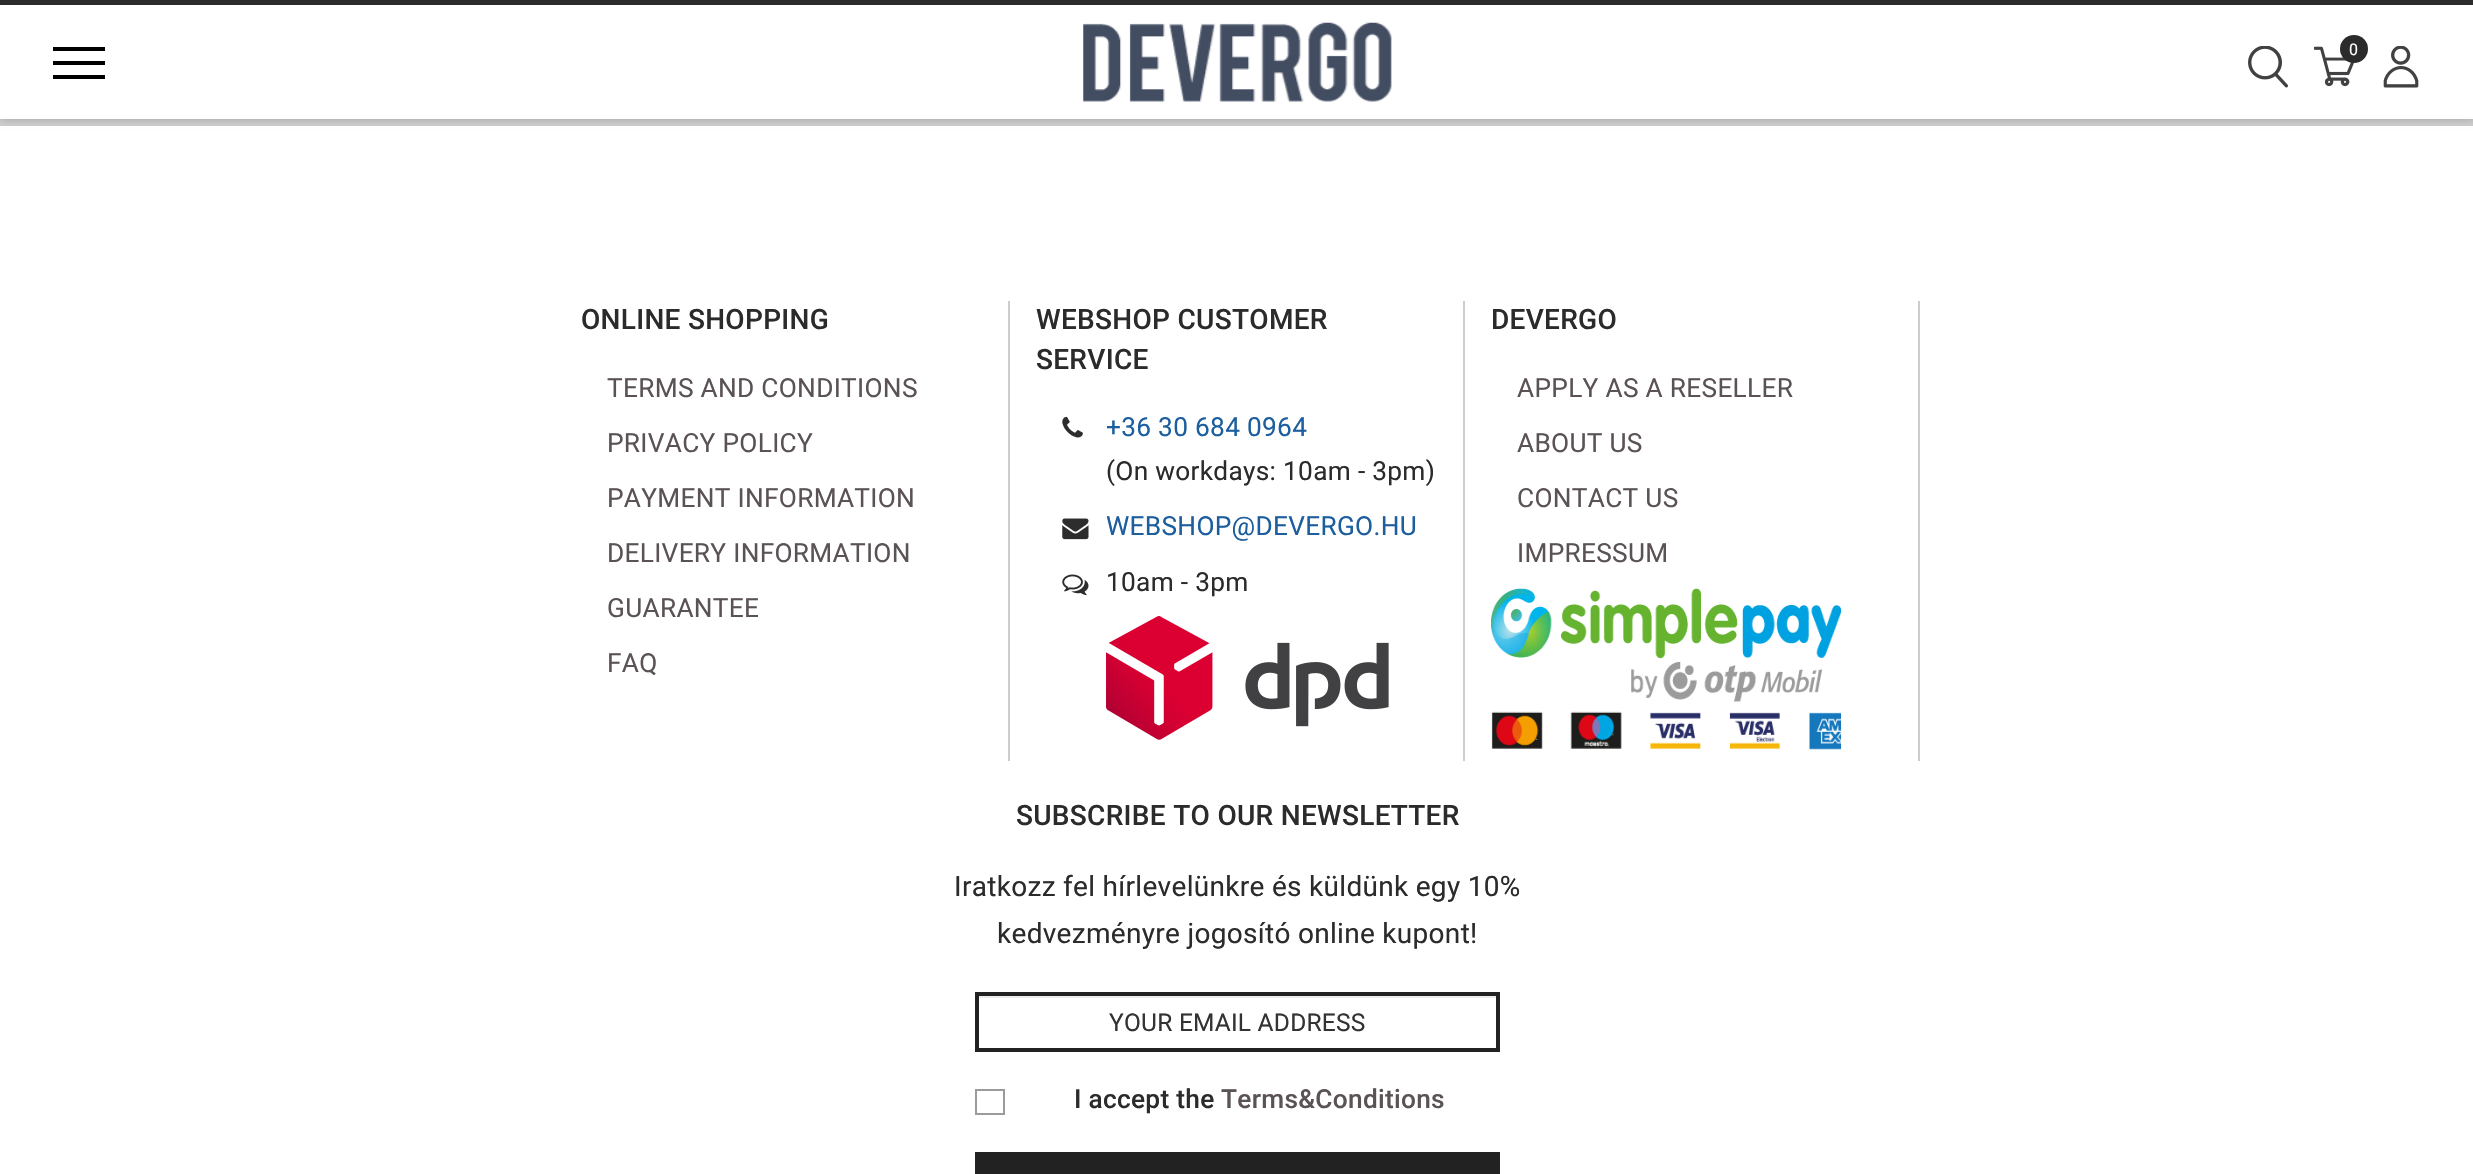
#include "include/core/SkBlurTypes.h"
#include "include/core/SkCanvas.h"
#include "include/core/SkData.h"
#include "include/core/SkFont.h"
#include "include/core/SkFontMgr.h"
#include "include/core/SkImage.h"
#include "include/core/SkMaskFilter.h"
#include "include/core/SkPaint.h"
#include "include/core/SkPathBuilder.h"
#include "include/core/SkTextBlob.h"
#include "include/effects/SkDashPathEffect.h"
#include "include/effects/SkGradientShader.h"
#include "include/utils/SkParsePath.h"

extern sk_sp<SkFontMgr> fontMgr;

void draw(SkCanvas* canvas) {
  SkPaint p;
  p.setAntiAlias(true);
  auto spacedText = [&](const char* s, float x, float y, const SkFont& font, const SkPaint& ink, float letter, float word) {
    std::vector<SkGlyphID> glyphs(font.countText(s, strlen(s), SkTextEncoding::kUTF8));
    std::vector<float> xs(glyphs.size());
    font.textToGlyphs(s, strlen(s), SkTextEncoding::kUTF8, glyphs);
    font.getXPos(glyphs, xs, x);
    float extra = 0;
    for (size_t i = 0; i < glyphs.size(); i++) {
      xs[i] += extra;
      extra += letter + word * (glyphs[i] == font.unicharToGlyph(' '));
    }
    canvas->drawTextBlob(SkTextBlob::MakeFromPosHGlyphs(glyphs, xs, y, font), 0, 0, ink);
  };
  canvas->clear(SK_ColorWHITE);
  p.setColor(SkColorSetRGB(205, 205, 205));
  canvas->drawRect(SkRect::MakeLTRB(0, 119, 2473, 126), p);
  p.setColor(SkColorSetARGB(51, 0, 0, 0));
  p.setMaskFilter(SkMaskFilter::MakeBlur(kNormal_SkBlurStyle, 4.5f));
  canvas->drawRect(SkRect::MakeLTRB(0, -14, 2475, 119), p);
  p.setMaskFilter(nullptr);
  p.setColor(SK_ColorWHITE);
  canvas->drawRect(SkRect::MakeLTRB(0, 5, 2473, 119), p);
  p.setColor(SkColorSetRGB(43, 43, 43));
  canvas->drawRect(SkRect::MakeLTRB(0, 0, 2473, 5), p);
  canvas->drawImageRect(SkImages::DeferredFromEncodedData(SkData::MakeFromFileName("images/1.png")), SkRect::MakeLTRB(1083, 22, 1392, 102), SkSamplingOptions());
  p.setColor(SK_ColorBLACK);
  canvas->drawRect(SkRect::MakeLTRB(53, 47, 105, 51), p);
  canvas->drawRect(SkRect::MakeLTRB(53, 61, 105, 65), p);
  canvas->drawRect(SkRect::MakeLTRB(53, 75, 105, 79), p);
  canvas->drawImageRect(SkImages::DeferredFromEncodedData(SkData::MakeFromFileName("images/2.png")), SkRect::MakeLTRB(2248, 46, 2288, 88), SkSamplingOptions());
  canvas->drawImageRect(SkImages::DeferredFromEncodedData(SkData::MakeFromFileName("images/3.png")), SkRect::MakeLTRB(2314, 46, 2355, 87), SkSamplingOptions());
  p.setColor(SkColorSetRGB(43, 43, 43));
  canvas->drawCircle(2354, 49, 14, p);
  canvas->drawImageRect(SkImages::DeferredFromEncodedData(SkData::MakeFromFileName("images/4.png")), SkRect::MakeLTRB(2383, 46, 2419, 88), SkSamplingOptions());
  p.setColor(SkColorSetRGB(205, 205, 205));
  canvas->drawRect(SkRect::MakeLTRB(1008, 301, 1010, 761), p);
  canvas->drawRect(SkRect::MakeLTRB(1463, 301, 1465, 761), p);
  canvas->drawImageRect(SkImages::DeferredFromEncodedData(SkData::MakeFromFileName("images/5.png")), SkRect::MakeLTRB(1062, 416, 1083, 438), SkSamplingOptions());
  canvas->drawImageRect(SkImages::DeferredFromEncodedData(SkData::MakeFromFileName("images/6.png")), SkRect::MakeLTRB(1062, 518, 1089, 540), SkSamplingOptions());
  canvas->drawImageRect(SkImages::DeferredFromEncodedData(SkData::MakeFromFileName("images/7.png")), SkRect::MakeLTRB(1062, 574, 1089, 596), SkSamplingOptions());
  canvas->drawImageRect(SkImages::DeferredFromEncodedData(SkData::MakeFromFileName("images/8.png")), SkRect::MakeLTRB(1106, 616, 1389, 740), SkSamplingOptions());
  canvas->drawRect(SkRect::MakeLTRB(1918, 301, 1920, 761), p);
  canvas->drawImageRect(SkImages::DeferredFromEncodedData(SkData::MakeFromFileName("images/9.png")), SkRect::MakeLTRB(1491, 588, 1841, 750), SkSamplingOptions());
  p.setColor(SkColorSetRGB(236, 236, 236));
  canvas->drawRect(SkRect::MakeLTRB(978, 996, 1496, 998), p);
  p.setStyle(SkPaint::kStroke_Style);
  p.setStrokeWidth(4);
  p.setColor(SkColorSetRGB(34, 34, 34));
  canvas->drawRect(SkRect::MakeLTRB(977, 994, 1498, 1050), p);
  p.setStrokeWidth(2);
  p.setColor(SkColorSetRGB(157, 154, 155));
  canvas->drawRect(SkRect::MakeLTRB(976, 1090, 1004, 1114), p);
  p.setStyle(SkPaint::kFill_Style);
  p.setColor(SkColorSetRGB(34, 34, 34));
  canvas->drawRect(SkRect::MakeLTRB(975, 1152, 1500, 1174), p);
  SkFont font1(fontMgr->matchFamilyStyle("Roboto", SkFontStyle::Normal()), 16);
  font1.setSubpixel(true);
  p.setColor(SK_ColorWHITE);
  spacedText("0", 2349, 55, font1, p, 0.3f, 0);
  SkFont font2(fontMgr->matchFamilyStyle("Roboto", SkFontStyle(500, SkFontStyle::kNormal_Width, SkFontStyle::kUpright_Slant)), 28);
  font2.setSubpixel(true);
  p.setColor(SkColorSetRGB(43, 43, 43));
  spacedText("ONLINE SHOPPING", 581, 329, font2, p, 0.3f, 0);
  SkFont font3(fontMgr->matchFamilyStyle("Roboto", SkFontStyle::Normal()), 26.25f);
  font3.setSubpixel(true);
  p.setColor(SkColorSetRGB(90, 82, 84));
  spacedText("TERMS AND CONDITIONS", 607, 397, font3, p, 0.3f, 0);
  spacedText("PRIVACY POLICY", 607, 452, font3, p, 0.3f, 0);
  spacedText("PAYMENT INFORMATION", 607, 507, font3, p, 0.3f, 0);
  spacedText("DELIVERY INFORMATION", 607, 562, font3, p, 0.3f, 0);
  spacedText("GUARANTEE", 607, 617, font3, p, 0.3f, 0);
  spacedText("FAQ", 607, 672, font3, p, 0.3f, 0);
  p.setColor(SkColorSetRGB(43, 43, 43));
  spacedText("WEBSHOP CUSTOMER", 1036, 329, font2, p, 0.3f, 0);
  spacedText("SERVICE", 1036, 369, font2, p, 0.3f, 0);
  p.setColor(SkColorSetRGB(28, 94, 158));
  spacedText("+36 30 684 0964", 1106, 436, font3, p, 0.3f, 0);
  p.setColor(SkColorSetRGB(43, 43, 43));
  spacedText("(On workdays: 10am - 3pm)", 1106, 480, font3, p, 0.3f, 0);
  p.setColor(SkColorSetRGB(28, 94, 158));
  spacedText("WEBSHOP@DEVERGO.HU", 1106, 535, font3, p, 0.3f, 0);
  p.setColor(SkColorSetRGB(43, 43, 43));
  spacedText("10am - 3pm", 1106, 591, font3, p, 0.3f, 0);
  spacedText("DEVERGO", 1491, 329, font2, p, 0.3f, 0);
  p.setColor(SkColorSetRGB(90, 82, 84));
  spacedText("APPLY AS A RESELLER", 1517, 397, font3, p, 0.3f, 0);
  spacedText("ABOUT US", 1517, 452, font3, p, 0.3f, 0);
  spacedText("CONTACT US", 1517, 507, font3, p, 0.3f, 0);
  spacedText("IMPRESSUM", 1517, 562, font3, p, 0.3f, 0);
  p.setColor(SkColorSetRGB(43, 43, 43));
  spacedText("SUBSCRIBE TO OUR NEWSLETTER", 1016, 825, font2, p, 0.3f, 0);
  SkFont font4(fontMgr->matchFamilyStyle("Roboto", SkFontStyle::Normal()), 28);
  font4.setSubpixel(true);
  spacedText("Iratkozz fel hírlevelünkre és küldünk egy 10%", 954, 896, font4, p, 0.3f, 0);
  spacedText("kedvezményre jogosító online kupont!", 997, 943, font4, p, 0.3f, 0);
  SkFont font5(fontMgr->matchFamilyStyle("Roboto", SkFontStyle::Normal()), 24.5f);
  font5.setSubpixel(true);
  p.setColor(SkColorSetRGB(51, 51, 51));
  spacedText("YOUR EMAIL ADDRESS", 1109, 1031, font5, p, 0.25f, 0);
  SkFont font6(fontMgr->matchFamilyStyle("Roboto", SkFontStyle(500, SkFontStyle::kNormal_Width, SkFontStyle::kUpright_Slant)), 26.25f);
  font6.setSubpixel(true);
  p.setColor(SkColorSetRGB(43, 43, 43));
  spacedText("I accept the", 1074, 1108, font6, p, 0.3f, 0);
  p.setColor(SkColorSetRGB(90, 82, 84));
  spacedText("Terms&Conditions", 1221, 1108, font6, p, 0.3f, 0);
}
